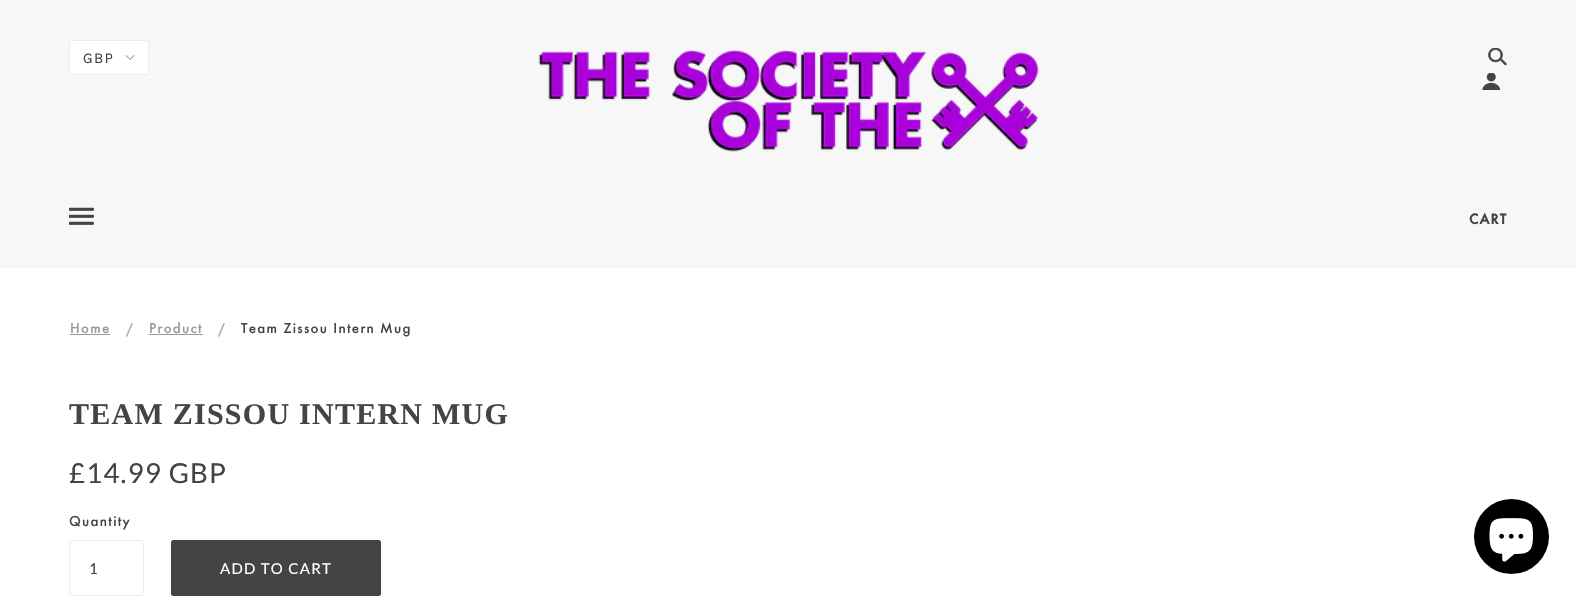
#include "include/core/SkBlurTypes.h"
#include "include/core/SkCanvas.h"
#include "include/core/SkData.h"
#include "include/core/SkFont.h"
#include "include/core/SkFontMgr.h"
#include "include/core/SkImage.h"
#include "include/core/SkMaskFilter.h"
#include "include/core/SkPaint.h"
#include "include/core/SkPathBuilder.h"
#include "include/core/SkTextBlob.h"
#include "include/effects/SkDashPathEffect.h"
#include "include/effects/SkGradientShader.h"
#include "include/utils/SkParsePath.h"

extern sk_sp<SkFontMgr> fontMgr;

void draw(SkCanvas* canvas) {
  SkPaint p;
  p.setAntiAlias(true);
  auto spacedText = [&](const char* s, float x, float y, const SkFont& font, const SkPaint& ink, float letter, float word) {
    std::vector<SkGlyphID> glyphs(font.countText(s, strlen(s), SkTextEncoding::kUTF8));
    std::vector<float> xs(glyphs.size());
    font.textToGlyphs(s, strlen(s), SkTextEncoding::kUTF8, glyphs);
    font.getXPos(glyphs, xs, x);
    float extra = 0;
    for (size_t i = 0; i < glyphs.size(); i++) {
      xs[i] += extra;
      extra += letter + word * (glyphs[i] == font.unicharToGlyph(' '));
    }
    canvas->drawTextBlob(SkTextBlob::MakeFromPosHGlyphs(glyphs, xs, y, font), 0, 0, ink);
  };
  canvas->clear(SK_ColorWHITE);
  p.setColor(SkColorSetRGB(247, 247, 247));
  canvas->drawRect(SkRect::MakeLTRB(0, 0, 1576, 268), p);
  p.setColor(SK_ColorWHITE);
  canvas->drawRoundRect(SkRect::MakeLTRB(69, 40, 149, 75), 2.5f, 2.5f, p);
  canvas->drawImageRect(SkImages::DeferredFromEncodedData(SkData::MakeFromFileName("images/1.png")), SkRect::MakeLTRB(125, 55, 135, 60), SkSamplingOptions());
  p.setStyle(SkPaint::kStroke_Style);
  p.setStrokeWidth(1);
  p.setColor(SkColorSetRGB(235, 235, 235));
  canvas->drawRoundRect(SkRect::MakeLTRB(69.5f, 40.5f, 148.5f, 74.5f), 2, 2, p);
  canvas->drawImageRect(SkImages::DeferredFromEncodedData(SkData::MakeFromFileName("images/2.png")), SkRect::MakeLTRB(538, 50, 1039, 152), SkSamplingOptions());
  canvas->drawImageRect(SkImages::DeferredFromEncodedData(SkData::MakeFromFileName("images/3.png")), SkRect::MakeLTRB(1488, 48, 1507, 65), SkSamplingOptions());
  canvas->drawImageRect(SkImages::DeferredFromEncodedData(SkData::MakeFromFileName("images/4.png")), SkRect::MakeLTRB(1482, 73, 1501, 90), SkSamplingOptions());
  canvas->drawImageRect(SkImages::DeferredFromEncodedData(SkData::MakeFromFileName("images/5.png")), SkRect::MakeLTRB(69, 207, 94, 225), SkSamplingOptions());
  p.setStyle(SkPaint::kFill_Style);
  p.setColor(SkColorSetRGB(153, 153, 153));
  canvas->drawRect(SkRect::MakeLTRB(70, 334, 110, 335), p);
  canvas->drawRect(SkRect::MakeLTRB(149, 334, 203, 335), p);
  p.setStyle(SkPaint::kStroke_Style);
  p.setColor(SkColorSetRGB(235, 235, 235));
  canvas->drawRoundRect(SkRect::MakeLTRB(69.5f, 540.5f, 143.5f, 595.5f), 2, 2, p);
  p.setStyle(SkPaint::kFill_Style);
  p.setColor(SkColorSetRGB(68, 68, 68));
  canvas->drawRoundRect(SkRect::MakeLTRB(171, 540, 381, 596), 2.5f, 2.5f, p);
  p.setColor(SK_ColorBLACK);
  canvas->drawCircle(1511.5f, 536.5f, 37.5f, p);
  canvas->drawImageRect(SkImages::DeferredFromEncodedData(SkData::MakeFromFileName("images/6.png")), SkRect::MakeLTRB(1489, 518, 1533, 562), SkSamplingOptions());
  SkFont font1(fontMgr->matchFamilyStyle("Karla", SkFontStyle::Normal()), 15);
  font1.setSubpixel(true);
  p.setColor(SkColorSetRGB(68, 68, 68));
  spacedText("GBP", 83, 63, font1, p, 1.25f, 0);
  SkFont font2(fontMgr->matchFamilyStyle("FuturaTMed", SkFontStyle::Bold()), 15);
  font2.setSubpixel(true);
  spacedText("CART", 1469, 224, font2, p, 1.25f, 0);
  SkFont font3(fontMgr->matchFamilyStyle("FuturaTMed", SkFontStyle::Normal()), 15);
  font3.setSubpixel(true);
  p.setColor(SkColorSetRGB(153, 153, 153));
  spacedText("Home", 70, 333, font3, p, 1.25f, 0);
  p.setColor(SkColorSetRGB(170, 170, 170));
  spacedText("/", 126, 334, font3, p, 1.25f, 0);
  p.setColor(SkColorSetRGB(153, 153, 153));
  spacedText("Product", 149, 333, font3, p, 1.25f, 0);
  p.setColor(SkColorSetRGB(170, 170, 170));
  spacedText("/", 218, 334, font3, p, 1.25f, 0);
  p.setColor(SkColorSetRGB(68, 68, 68));
  spacedText("Team Zissou Intern Mug", 241, 333, font3, p, 1.25f, 0);
  SkFont font4(fontMgr->matchFamilyStyle("Liberation Serif", SkFontStyle::Bold()), 30);
  font4.setSubpixel(true);
  spacedText("TEAM ZISSOU INTERN MUG", 69, 424, font4, p, 1.25f, 0);
  SkFont font5(fontMgr->matchFamilyStyle("Lato", SkFontStyle::Normal()), 27.5f);
  font5.setSubpixel(true);
  spacedText("£14.99 GBP", 69, 483, font5, p, 1.25f, 0);
  spacedText("Quantity", 69, 526, font3, p, 1.25f, 0);
  SkFont font6(fontMgr->matchFamilyStyle("Lato", SkFontStyle::Normal()), 15);
  font6.setSubpixel(true);
  spacedText("1", 89, 574, font6, p, 1, 0);
  p.setColor(SK_ColorWHITE);
  spacedText("ADD TO CART", 220, 574, font6, p, 1.25f, 0);
}
